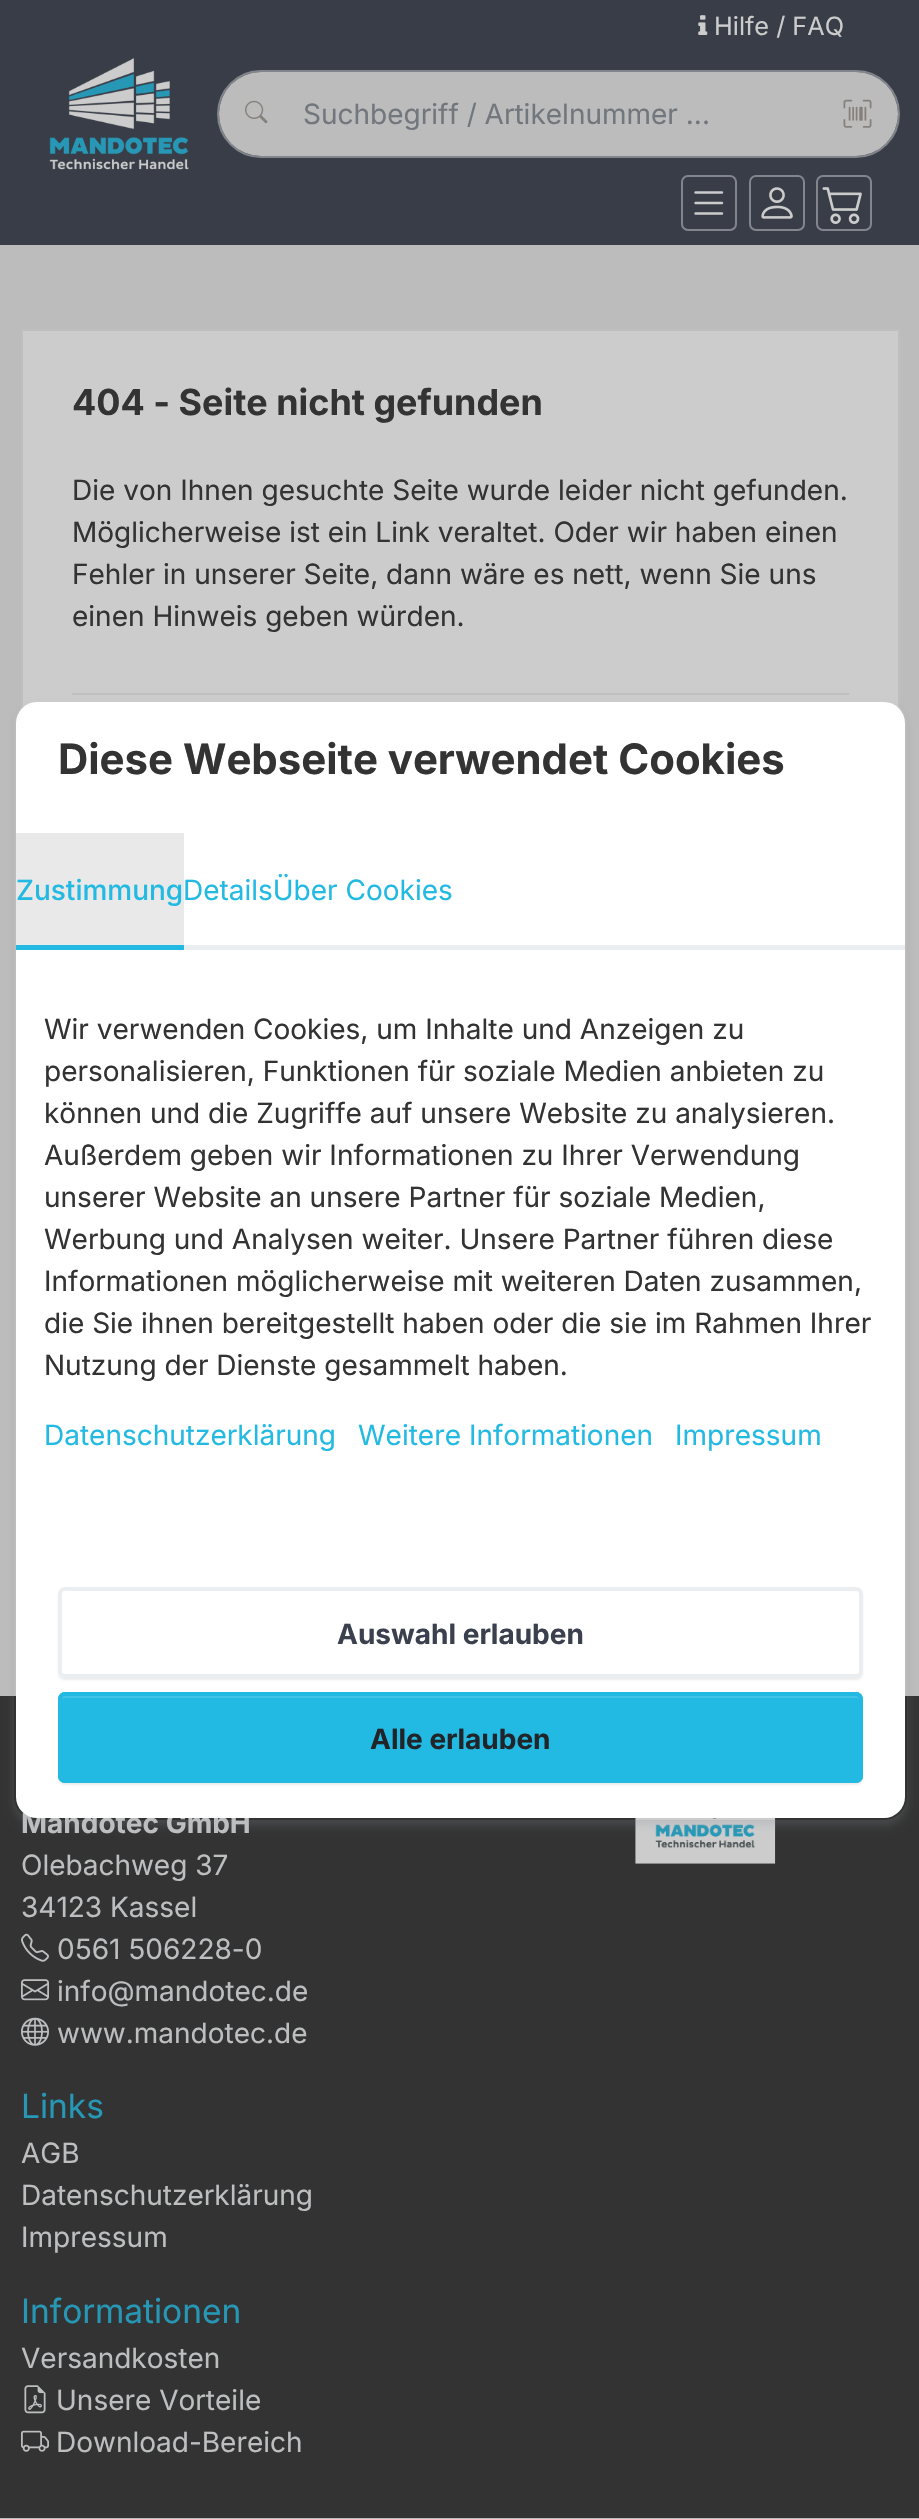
#include "include/core/SkBlurTypes.h"
#include "include/core/SkCanvas.h"
#include "include/core/SkData.h"
#include "include/core/SkFont.h"
#include "include/core/SkFontMgr.h"
#include "include/core/SkImage.h"
#include "include/core/SkMaskFilter.h"
#include "include/core/SkPaint.h"
#include "include/core/SkPathBuilder.h"
#include "include/core/SkTextBlob.h"
#include "include/effects/SkDashPathEffect.h"
#include "include/effects/SkGradientShader.h"
#include "include/utils/SkParsePath.h"

extern sk_sp<SkFontMgr> fontMgr;

void draw(SkCanvas* canvas) {
  SkPaint p;
  p.setAntiAlias(true);
  canvas->clear(SkColorSetRGB(188, 188, 188));
  p.setColor(SkColorSetRGB(56, 61, 71));
  canvas->drawRect(SkRect::MakeLTRB(0, 0, 919, 245), p);
  canvas->drawImageRect(SkImages::DeferredFromEncodedData(SkData::MakeFromFileName("images/1.png")), SkRect::MakeLTRB(698, 15, 708, 35), SkSamplingOptions());
  canvas->drawImageRect(SkImages::DeferredFromEncodedData(SkData::MakeFromFileName("images/2.png")), SkRect::MakeLTRB(49, 58, 189, 170), SkSamplingOptions());
  p.setColor(SkColorSetRGB(188, 188, 188));
  canvas->drawRoundRect(SkRect::MakeLTRB(219, 72, 898, 156), 42, 42, p);
  p.setStyle(SkPaint::kStroke_Style);
  p.setStrokeWidth(2);
  p.setColor(SkColorSetARGB(153, 179, 182, 185));
  canvas->drawRoundRect(SkRect::MakeLTRB(218, 71, 899, 157), 43, 43, p);
  canvas->drawImageRect(SkImages::DeferredFromEncodedData(SkData::MakeFromFileName("images/3.png")), SkRect::MakeLTRB(245, 100, 268, 124), SkSamplingOptions());
  canvas->drawImageRect(SkImages::DeferredFromEncodedData(SkData::MakeFromFileName("images/4.png")), SkRect::MakeLTRB(843, 99, 872, 128), SkSamplingOptions());
  p.setColor(SkColorSetRGB(130, 134, 140));
  canvas->drawRoundRect(SkRect::MakeLTRB(682, 176, 736, 230), 6, 6, p);
  canvas->drawImageRect(SkImages::DeferredFromEncodedData(SkData::MakeFromFileName("images/5.png")), SkRect::MakeLTRB(694, 191, 724, 215), SkSamplingOptions());
  canvas->drawRoundRect(SkRect::MakeLTRB(750, 176, 804, 230), 6, 6, p);
  canvas->drawImageRect(SkImages::DeferredFromEncodedData(SkData::MakeFromFileName("images/6.png")), SkRect::MakeLTRB(761, 187, 793, 219), SkSamplingOptions());
  canvas->drawRoundRect(SkRect::MakeLTRB(817, 176, 871, 230), 6, 6, p);
  canvas->drawImageRect(SkImages::DeferredFromEncodedData(SkData::MakeFromFileName("images/7.png")), SkRect::MakeLTRB(822, 187, 862, 224), SkSamplingOptions());
  p.setStyle(SkPaint::kFill_Style);
  p.setColor(SkColorSetRGB(204, 204, 204));
  canvas->drawRect(SkRect::MakeLTRB(23, 331, 898, 708), p);
  p.setStyle(SkPaint::kStroke_Style);
  p.setColor(SkColorSetRGB(189, 191, 193));
  canvas->drawRect(SkRect::MakeLTRB(22, 330, 899, 892), p);
  p.setStyle(SkPaint::kFill_Style);
  canvas->drawRect(SkRect::MakeLTRB(72, 693, 849, 695), p);
  p.setColor(SkColorSetRGB(51, 51, 51));
  canvas->drawRect(SkRect::MakeLTRB(0, 1696, 919, 2518), p);
  canvas->drawImageRect(SkImages::DeferredFromEncodedData(SkData::MakeFromFileName("images/11.png")), SkRect::MakeLTRB(635, 1818, 776, 1864), SkSamplingOptions());
  canvas->save();
  canvas->clipPath(SkPathBuilder(SkPathFillType::kEvenOdd).moveTo(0, 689).lineTo(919, 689).lineTo(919, 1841).lineTo(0, 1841).close().moveTo(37, 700).lineTo(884, 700).cubicTo(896.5f, 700, 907, 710.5f, 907, 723).lineTo(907, 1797).cubicTo(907, 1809.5f, 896.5f, 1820, 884, 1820).lineTo(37, 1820).cubicTo(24.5f, 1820, 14, 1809.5f, 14, 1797).lineTo(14, 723).cubicTo(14, 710.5f, 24.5f, 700, 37, 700).close().detach(), true);
  p.setColor(SkColorSetARGB(64, 134, 142, 150));
  p.setMaskFilter(SkMaskFilter::MakeBlur(kNormal_SkBlurStyle, 5));
  canvas->drawRoundRect(SkRect::MakeLTRB(14, 705, 907, 1825), 23, 23, p);
  p.setMaskFilter(nullptr);
  canvas->restore();
  canvas->drawImageRect(SkImages::DeferredFromEncodedData(SkData::MakeFromFileName("images/8.png")), SkRect::MakeLTRB(21, 1933, 49, 1962), SkSamplingOptions());
  canvas->drawImageRect(SkImages::DeferredFromEncodedData(SkData::MakeFromFileName("images/9.png")), SkRect::MakeLTRB(21, 1979, 49, 2001), SkSamplingOptions());
  canvas->drawImageRect(SkImages::DeferredFromEncodedData(SkData::MakeFromFileName("images/10.png")), SkRect::MakeLTRB(21, 2017, 49, 2046), SkSamplingOptions());
  canvas->drawImageRect(SkImages::DeferredFromEncodedData(SkData::MakeFromFileName("images/12.png")), SkRect::MakeLTRB(24, 2385, 46, 2414), SkSamplingOptions());
  canvas->drawImageRect(SkImages::DeferredFromEncodedData(SkData::MakeFromFileName("images/13.png")), SkRect::MakeLTRB(21, 2430, 49, 2452), SkSamplingOptions());
  SkFont font1(fontMgr->matchFamilyStyle("Inter", SkFontStyle::Normal()), 25.25f);
  font1.setSubpixel(true);
  p.setColor(SkColorSetRGB(204, 204, 204));
  canvas->drawString("Hilfe / FAQ", 714, 35, font1, p);
  SkFont font2(fontMgr->matchFamilyStyle("Inter", SkFontStyle::Normal()), 28);
  font2.setSubpixel(true);
  p.setColor(SkColorSetRGB(113, 119, 125));
  canvas->drawString("Suchbegriff / Artikelnummer ...", 303, 124, font2, p);
  SkFont font3(fontMgr->matchFamilyStyle("Inter", SkFontStyle::Bold()), 35.9f);
  font3.setSubpixel(true);
  p.setColor(SkColorSetRGB(51, 51, 51));
  canvas->drawString("404 - Seite nicht gefunden", 72, 415, font3, p);
  canvas->drawString("Die von Ihnen gesuchte Seite wurde leider nicht gefunden.", 72, 500, font2, p);
  canvas->drawString("Möglicherweise ist ein Link veraltet. Oder wir haben einen", 72, 542, font2, p);
  canvas->drawString("Fehler in unserer Seite, dann wäre es nett, wenn Sie uns", 72, 584, font2, p);
  canvas->drawString("einen Hinweis geben würden.", 72, 626, font2, p);
  SkFont font4(fontMgr->matchFamilyStyle("Inter", SkFontStyle::Bold()), 28);
  font4.setSubpixel(true);
  p.setColor(SkColorSetRGB(188, 190, 192));
  canvas->drawString("Mandotec GmbH", 21, 1833, font4, p);
  p.setColor(SK_ColorWHITE);
  canvas->drawRoundRect(SkRect::MakeLTRB(16, 702, 905, 1818), 21, 21, p);
  p.setColor(SkColorSetARGB(18, 0, 0, 0));
  p.setMaskFilter(SkMaskFilter::MakeBlur(kNormal_SkBlurStyle, 1));
  canvas->drawRoundRect(SkRect::MakeLTRB(58, 1694, 863, 1785), 7, 7, p);
  p.setMaskFilter(nullptr);
  p.setColor(SkColorSetRGB(34, 186, 226));
  canvas->drawRoundRect(SkRect::MakeLTRB(58, 1692, 863, 1783), 7, 7, p);
  p.setColor(SkColorSetRGB(67, 196, 230));
  canvas->drawPath(SkPathBuilder().moveTo(65, 1698).lineTo(856, 1698).cubicTo(858, 1698, 859, 1699, 859, 1701).cubicTo(859, 1698, 858, 1696, 855, 1696).lineTo(65, 1696).cubicTo(62, 1696, 61, 1698, 61, 1701).cubicTo(61, 1699, 63, 1698, 65, 1698).close().detach(), p);
  p.setStyle(SkPaint::kStroke_Style);
  p.setStrokeWidth(4);
  p.setColor(SkColorSetRGB(34, 186, 226));
  canvas->drawRoundRect(SkRect::MakeLTRB(60, 1694, 861, 1781), 5, 5, p);
  p.setStyle(SkPaint::kFill_Style);
  p.setColor(SkColorSetRGB(33, 37, 41));
  canvas->drawString("Alle erlauben", 370, 1749, font4, p);
  canvas->save();
  canvas->clipPath(SkPathBuilder(SkPathFillType::kEvenOdd).moveTo(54, 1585).lineTo(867, 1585).lineTo(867, 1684).lineTo(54, 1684).close().moveTo(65, 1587).lineTo(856, 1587).cubicTo(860, 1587, 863, 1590, 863, 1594).lineTo(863, 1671).cubicTo(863, 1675, 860, 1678, 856, 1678).lineTo(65, 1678).cubicTo(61, 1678, 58, 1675, 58, 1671).lineTo(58, 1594).cubicTo(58, 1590, 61, 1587, 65, 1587).close().detach(), true);
  p.setColor(SkColorSetARGB(18, 0, 0, 0));
  p.setMaskFilter(SkMaskFilter::MakeBlur(kNormal_SkBlurStyle, 1));
  canvas->drawRoundRect(SkRect::MakeLTRB(58, 1589, 863, 1680), 7, 7, p);
  p.setMaskFilter(nullptr);
  canvas->restore();
  p.setStyle(SkPaint::kStroke_Style);
  p.setColor(SkColorSetARGB(153, 222, 226, 230));
  canvas->drawRoundRect(SkRect::MakeLTRB(60, 1589, 861, 1676), 5, 5, p);
  p.setStyle(SkPaint::kFill_Style);
  p.setColor(SkColorSetRGB(58, 64, 77));
  canvas->drawString("Auswahl erlauben", 337, 1644, font4, p);
  p.setColor(SkColorSetRGB(34, 186, 226));
  canvas->drawString("Impressum", 675, 1445, font2, p);
  canvas->drawString("Weitere Informationen", 358, 1445, font2, p);
  canvas->drawString("Datenschutzerklärung", 44, 1445, font2, p);
  p.setColor(SkColorSetRGB(51, 51, 51));
  canvas->drawString("Nutzung der Dienste gesammelt haben.", 44, 1375, font2, p);
  canvas->drawString("die Sie ihnen bereitgestellt haben oder die sie im Rahmen Ihrer", 44, 1333, font2, p);
  canvas->drawString("Informationen möglicherweise mit weiteren Daten zusammen,", 44, 1291, font2, p);
  canvas->drawString("Werbung und Analysen weiter. Unsere Partner führen diese", 44, 1249, font2, p);
  canvas->drawString("unserer Website an unsere Partner für soziale Medien,", 44, 1207, font2, p);
  canvas->drawString("Außerdem geben wir Informationen zu Ihrer Verwendung", 44, 1165, font2, p);
  canvas->drawString("können und die Zugriffe auf unsere Website zu analysieren.", 44, 1123, font2, p);
  canvas->drawString("personalisieren, Funktionen für soziale Medien anbieten zu", 44, 1081, font2, p);
  canvas->drawString("Wir verwenden Cookies, um Inhalte und Anzeigen zu", 44, 1039, font2, p);
  p.setColor(SkColorSetRGB(34, 186, 226));
  canvas->drawString("DetailsÜber Cookies", 183, 900, font2, p);
  p.setColor(SkColorSetRGB(233, 233, 233));
  canvas->drawRect(SkRect::MakeLTRB(16, 833, 184, 945), p);
  SkFont font5(fontMgr->matchFamilyStyle("Inter", SkFontStyle(500, SkFontStyle::kNormal_Width, SkFontStyle::kUpright_Slant)), 28);
  font5.setSubpixel(true);
  p.setColor(SkColorSetRGB(34, 186, 226));
  canvas->drawString("Zustimmung", 16, 900, font5, p);
  canvas->drawRect(SkRect::MakeLTRB(16, 945, 184, 950), p);
  p.setColor(SkColorSetRGB(235, 238, 240));
  canvas->drawRect(SkRect::MakeLTRB(184, 945, 905, 950), p);
  SkFont font6(fontMgr->matchFamilyStyle("Inter", SkFontStyle::Bold()), 41.9f);
  font6.setSubpixel(true);
  p.setColor(SkColorSetRGB(51, 51, 51));
  canvas->drawString("Diese Webseite verwendet Cookies", 58, 774, font6, p);
  p.setColor(SkColorSetRGB(188, 190, 192));
  canvas->drawString("Olebachweg 37", 21, 1875, font2, p);
  canvas->drawString("34123 Kassel", 21, 1917, font2, p);
  canvas->drawString("0561 506228-0", 57, 1959, font2, p);
  canvas->drawString("info@mandotec.de", 57, 2001, font2, p);
  canvas->drawString("www.mandotec.de", 57, 2043, font2, p);
  SkFont font7(fontMgr->matchFamilyStyle("Inter", SkFontStyle::Normal()), 33.5f);
  font7.setSubpixel(true);
  p.setColor(SkColorSetRGB(38, 152, 182));
  canvas->drawString("Links", 21, 2118, font7, p);
  p.setColor(SkColorSetRGB(188, 190, 192));
  canvas->drawString("AGB", 21, 2163, font2, p);
  canvas->drawString("Datenschutzerklärung", 21, 2205, font2, p);
  canvas->drawString("Impressum", 21, 2247, font2, p);
  p.setColor(SkColorSetRGB(38, 152, 182));
  canvas->drawString("Informationen", 21, 2323, font7, p);
  p.setColor(SkColorSetRGB(188, 190, 192));
  canvas->drawString("Versandkosten", 21, 2368, font2, p);
  canvas->drawString("Unsere Vorteile", 56, 2410, font2, p);
  canvas->drawString("Download-Bereich", 56, 2452, font2, p);
}
